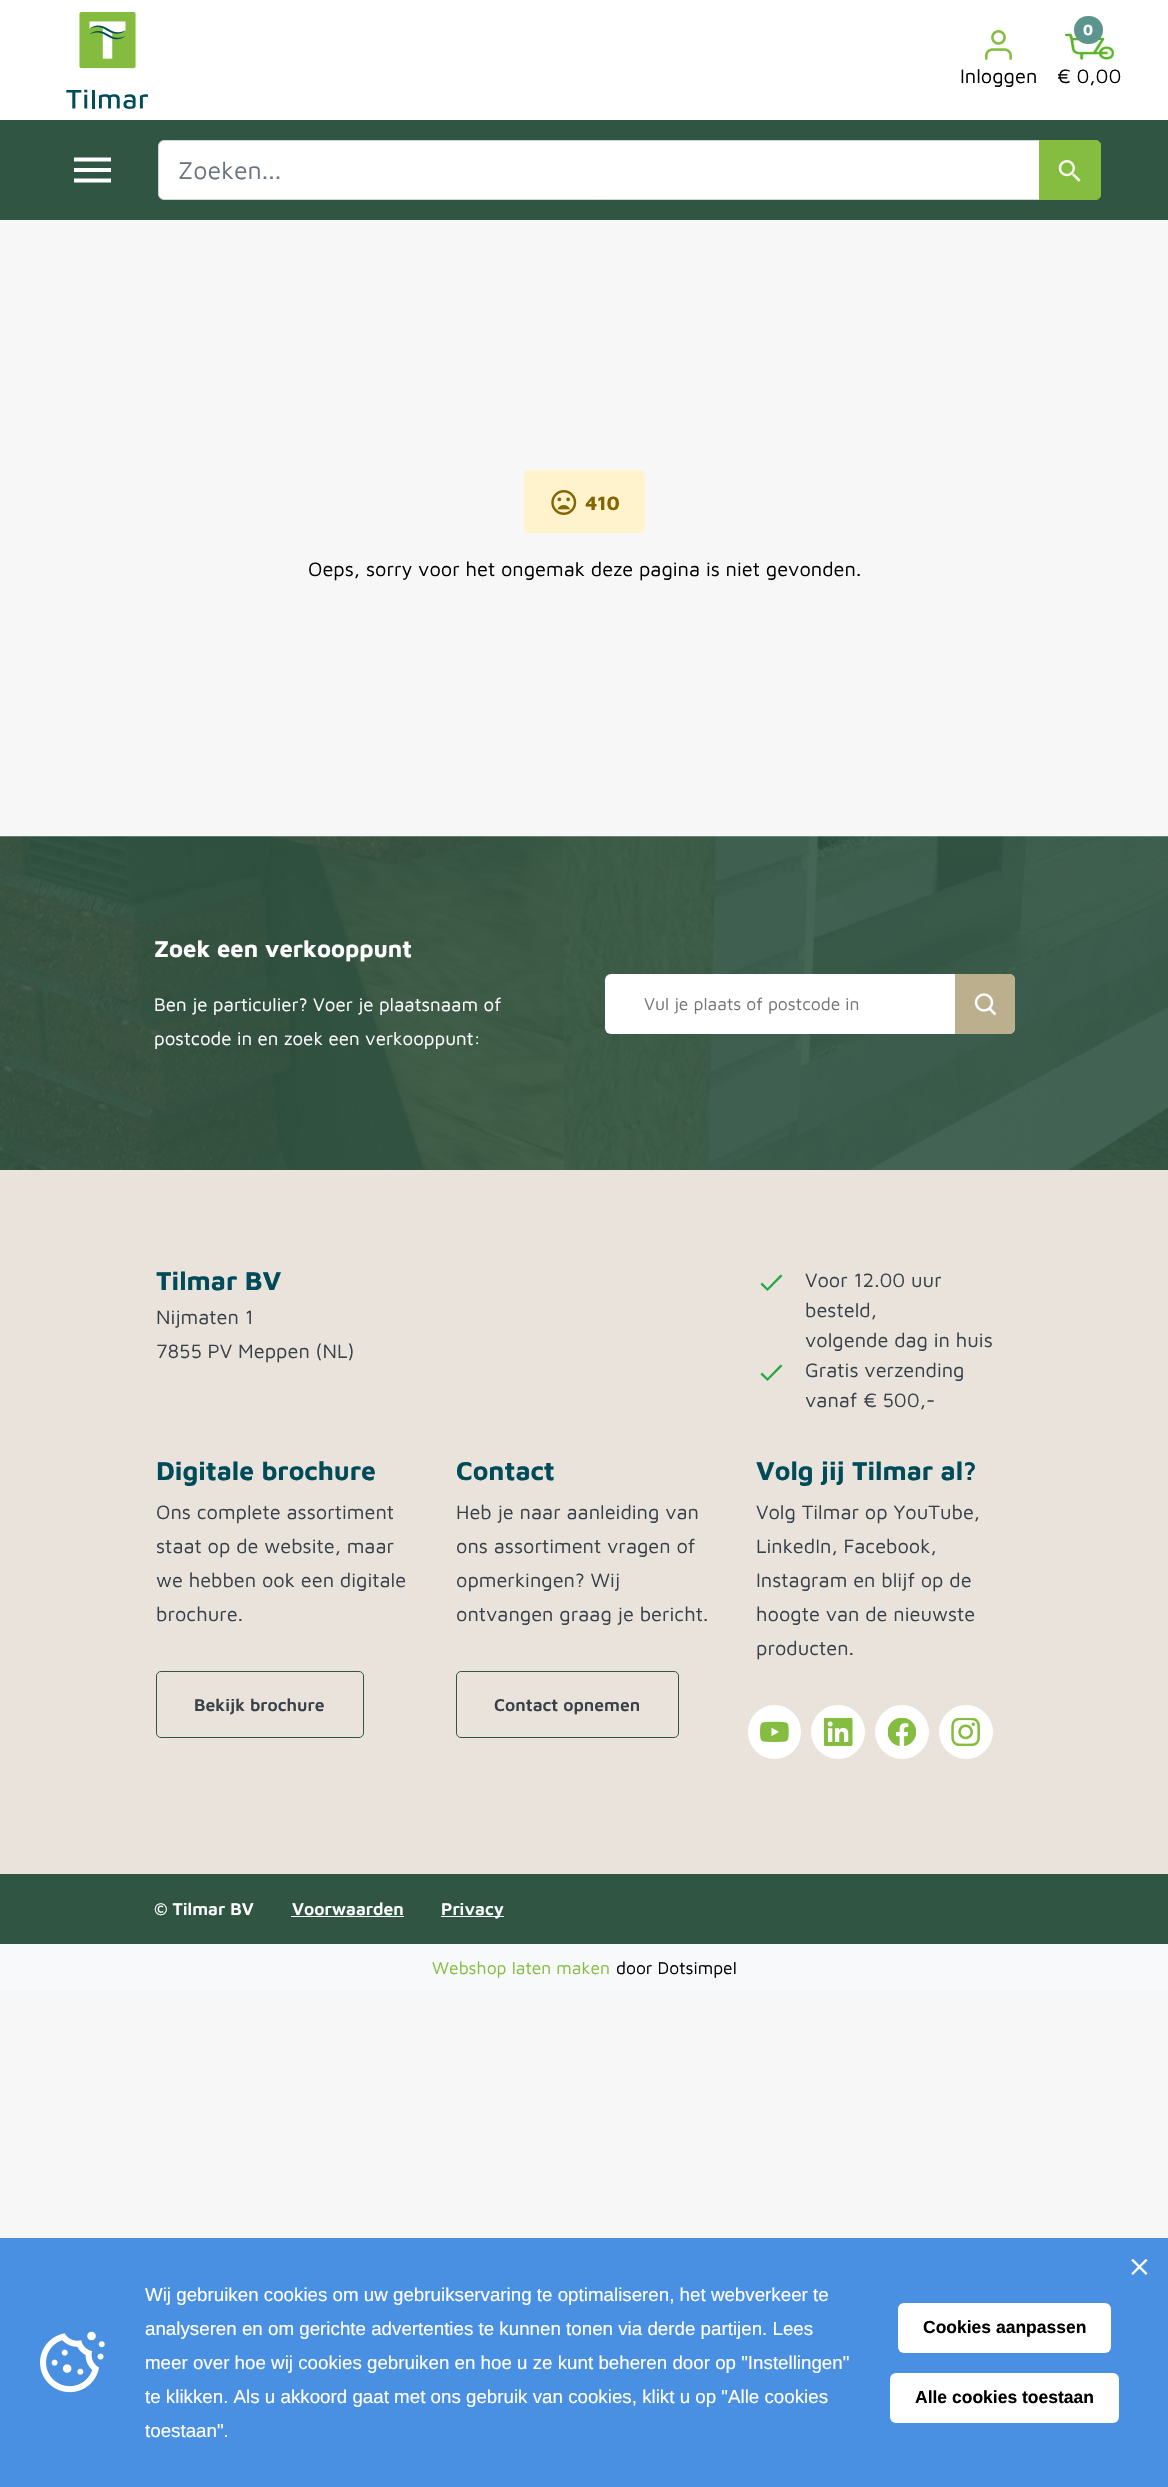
#include "include/core/SkBlurTypes.h"
#include "include/core/SkCanvas.h"
#include "include/core/SkData.h"
#include "include/core/SkFont.h"
#include "include/core/SkFontMgr.h"
#include "include/core/SkImage.h"
#include "include/core/SkMaskFilter.h"
#include "include/core/SkPaint.h"
#include "include/core/SkPathBuilder.h"
#include "include/core/SkTextBlob.h"
#include "include/effects/SkDashPathEffect.h"
#include "include/effects/SkGradientShader.h"
#include "include/utils/SkParsePath.h"

extern sk_sp<SkFontMgr> fontMgr;

void draw(SkCanvas* canvas) {
  SkPaint p;
  p.setAntiAlias(true);
  canvas->clear(SkColorSetRGB(247, 247, 247));
  p.setColor(SK_ColorWHITE);
  canvas->drawRect(SkRect::MakeLTRB(0, 0, 1168, 120), p);
  canvas->drawImageRect(SkImages::DeferredFromEncodedData(SkData::MakeFromFileName("images/1.png")), SkRect::MakeLTRB(66, 12, 148, 109), SkSamplingOptions());
  canvas->drawImageRect(SkImages::DeferredFromEncodedData(SkData::MakeFromFileName("images/2.png")), SkRect::MakeLTRB(985, 30, 1012, 60), SkSamplingOptions());
  canvas->drawImageRect(SkImages::DeferredFromEncodedData(SkData::MakeFromFileName("images/3.png")), SkRect::MakeLTRB(1065, 33, 1114, 60), SkSamplingOptions());
  p.setColor(SkColorSetRGB(92, 149, 142));
  canvas->drawRoundRect(SkRect::MakeLTRB(1074, 16, 1103, 44), 14, 14, p);
  p.setColor(SkColorSetRGB(49, 85, 67));
  canvas->drawRect(SkRect::MakeLTRB(0, 120, 1168, 220), p);
  p.setColor(SK_ColorWHITE);
  canvas->drawPath(SkPathBuilder().moveTo(74, 157.5f).lineTo(111, 157.5f).lineTo(111, 161.5f).lineTo(74, 161.5f).close().moveTo(74, 172).lineTo(74, 168).lineTo(111, 168).lineTo(111, 172).close().moveTo(74, 182.5f).lineTo(74, 178.5f).lineTo(111, 178.5f).lineTo(111, 182.5f).close().detach(), p);
  canvas->drawPath(SkPathBuilder().moveTo(164, 140.5f).lineTo(1039.5f, 140.5f).lineTo(1039.5f, 199.5f).lineTo(164, 199.5f).cubicTo(161, 199.5f, 158.5f, 197, 158.5f, 194).lineTo(158.5f, 146).cubicTo(158.5f, 143, 161, 140.5f, 164, 140.5f).close().detach(), p);
  p.setStyle(SkPaint::kStroke_Style);
  p.setStrokeWidth(1);
  p.setColor(SkColorSetRGB(206, 212, 218));
  canvas->drawPath(SkPathBuilder().moveTo(164, 140.5f).lineTo(1039.5f, 140.5f).lineTo(1039.5f, 199.5f).lineTo(164, 199.5f).cubicTo(161, 199.5f, 158.5f, 197, 158.5f, 194).lineTo(158.5f, 146).cubicTo(158.5f, 143, 161, 140.5f, 164, 140.5f).close().detach(), p);
  p.setStyle(SkPaint::kFill_Style);
  p.setColor(SkColorSetRGB(133, 189, 64));
  canvas->drawPath(SkPathBuilder().moveTo(1039.5f, 140.5f).lineTo(1096, 140.5f).cubicTo(1098.5f, 140.5f, 1100.5f, 142.5f, 1100.5f, 145).lineTo(1100.5f, 195).cubicTo(1100.5f, 197.5f, 1098.5f, 199.5f, 1096, 199.5f).lineTo(1039.5f, 199.5f).close().detach(), p);
  p.setStyle(SkPaint::kStroke_Style);
  canvas->drawPath(SkPathBuilder().moveTo(1039.5f, 140.5f).lineTo(1096, 140.5f).cubicTo(1098.5f, 140.5f, 1100.5f, 142.5f, 1100.5f, 145).lineTo(1100.5f, 195).cubicTo(1100.5f, 197.5f, 1098.5f, 199.5f, 1096, 199.5f).lineTo(1039.5f, 199.5f).close().detach(), p);
  canvas->drawImageRect(SkImages::DeferredFromEncodedData(SkData::MakeFromFileName("images/4.png")), SkRect::MakeLTRB(1058, 160, 1081, 182), SkSamplingOptions());
  p.setStyle(SkPaint::kFill_Style);
  p.setColor(SkColorSetRGB(255, 243, 205));
  canvas->drawRoundRect(SkRect::MakeLTRB(524, 470, 645, 533), 5, 5, p);
  canvas->drawImageRect(SkImages::DeferredFromEncodedData(SkData::MakeFromFileName("images/5.png")), SkRect::MakeLTRB(551, 490, 577, 515), SkSamplingOptions());
  canvas->drawImageRect(SkImages::DeferredFromEncodedData(SkData::MakeFromFileName("images/6.png")), SkRect::MakeLTRB(0, 836, 1168, 1170), SkSamplingOptions());
  p.setColor(SK_ColorWHITE);
  canvas->drawRoundRect(SkRect::MakeLTRB(605, 974, 1015, 1034), 6, 6, p);
  p.setColor(SkColorSetRGB(187, 175, 141));
  canvas->drawPath(SkPathBuilder().moveTo(955, 974).lineTo(1009, 974).cubicTo(1012.5f, 974, 1015, 976.5f, 1015, 980).lineTo(1015, 1028).cubicTo(1015, 1031.5f, 1012.5f, 1034, 1009, 1034).lineTo(955, 1034).close().detach(), p);
  p.setStyle(SkPaint::kStroke_Style);
  p.setStrokeWidth(2.5f);
  p.setColor(SK_ColorWHITE);
  canvas->drawCircle(984, 1002.5f, 8, p);
  canvas->drawPath(SkPathBuilder().moveTo(995.5f, 1014.5f).lineTo(989.5f, 1008.5f).detach(), p);
  p.setStyle(SkPaint::kFill_Style);
  p.setColor(SkColorSetRGB(233, 227, 220));
  canvas->drawRect(SkRect::MakeLTRB(0, 1170, 1168, 1874), p);
  p.setColor(SkColorSetRGB(40, 167, 69));
  canvas->drawPath(SkPathBuilder().moveTo(767.5f, 1288).lineTo(780.5f, 1274.5f).lineTo(782.5f, 1276).lineTo(767.5f, 1291).lineTo(760.5f, 1284.5f).lineTo(762, 1282.5f).close().detach(), p);
  canvas->drawPath(SkPathBuilder().moveTo(767.5f, 1378).lineTo(780.5f, 1364.5f).lineTo(782.5f, 1366).lineTo(767.5f, 1381).lineTo(760.5f, 1374.5f).lineTo(762, 1372.5f).close().detach(), p);
  p.setStyle(SkPaint::kStroke_Style);
  p.setStrokeWidth(1);
  p.setColor(SkColorSetRGB(49, 85, 67));
  canvas->drawRoundRect(SkRect::MakeLTRB(156.5f, 1671.5f, 363.5f, 1737.5f), 4.5f, 4.5f, p);
  canvas->drawRoundRect(SkRect::MakeLTRB(456.5f, 1671.5f, 678.5f, 1737.5f), 4.5f, 4.5f, p);
  p.setStyle(SkPaint::kFill_Style);
  p.setColor(SK_ColorWHITE);
  canvas->drawRoundRect(SkRect::MakeLTRB(748, 1705, 801, 1759), 26.5f, 26.5f, p);
  canvas->drawImageRect(SkImages::DeferredFromEncodedData(SkData::MakeFromFileName("images/7.png")), SkRect::MakeLTRB(760, 1721, 789, 1742), SkSamplingOptions());
  canvas->drawCircle(838, 1732, 27, p);
  canvas->drawImageRect(SkImages::DeferredFromEncodedData(SkData::MakeFromFileName("images/8.png")), SkRect::MakeLTRB(824, 1718, 853, 1746), SkSamplingOptions());
  canvas->drawCircle(902, 1732, 27, p);
  canvas->drawImageRect(SkImages::DeferredFromEncodedData(SkData::MakeFromFileName("images/9.png")), SkRect::MakeLTRB(888, 1718, 916, 1746), SkSamplingOptions());
  canvas->drawCircle(966, 1732, 27, p);
  canvas->drawImageRect(SkImages::DeferredFromEncodedData(SkData::MakeFromFileName("images/10.png")), SkRect::MakeLTRB(951, 1718, 980, 1746), SkSamplingOptions());
  p.setColor(SkColorSetRGB(49, 85, 67));
  canvas->drawRect(SkRect::MakeLTRB(0, 1874, 1168, 1944), p);
  p.setColor(SK_ColorWHITE);
  canvas->drawRect(SkRect::MakeLTRB(291, 1916, 404, 1917), p);
  canvas->drawRect(SkRect::MakeLTRB(441, 1916, 504, 1917), p);
  p.setColor(SkColorSetRGB(248, 249, 250));
  canvas->drawRect(SkRect::MakeLTRB(0, 1944, 1168, 1990), p);
  p.setColor(SkColorSetRGB(74, 144, 226));
  canvas->drawRect(SkRect::MakeLTRB(0, 2238, 1168, 2487), p);
  canvas->drawImageRect(SkImages::DeferredFromEncodedData(SkData::MakeFromFileName("images/11.png")), SkRect::MakeLTRB(1131, 2259, 1148, 2275), SkSamplingOptions());
  canvas->drawImageRect(SkImages::DeferredFromEncodedData(SkData::MakeFromFileName("images/12.png")), SkRect::MakeLTRB(40, 2331, 105, 2393), SkSamplingOptions());
  p.setColor(SK_ColorWHITE);
  canvas->drawRoundRect(SkRect::MakeLTRB(898, 2303, 1111, 2353), 6, 6, p);
  canvas->drawRoundRect(SkRect::MakeLTRB(890, 2373, 1119, 2423), 6, 6, p);
  SkFont font1(fontMgr->matchFamilyStyle("Maven Pro", SkFontStyle::Normal()), 20);
  font1.setSubpixel(true);
  p.setColor(SK_ColorBLACK);
  canvas->drawString("Inloggen", 960, 83, font1, p);
  SkFont font2(fontMgr->matchFamilyStyle("Maven Pro", SkFontStyle::Bold()), 15);
  font2.setSubpixel(true);
  p.setColor(SK_ColorWHITE);
  canvas->drawString("0", 1083, 35, font2, p);
  p.setColor(SK_ColorBLACK);
  canvas->drawString("€ 0,00", 1057, 83, font1, p);
  SkFont font3(fontMgr->matchFamilyStyle("Maven Pro", SkFontStyle::Normal()), 25);
  font3.setSubpixel(true);
  p.setColor(SkColorSetRGB(108, 117, 125));
  canvas->drawString("Zoeken...", 178, 179, font3, p);
  SkFont font4(fontMgr->matchFamilyStyle("Maven Pro", SkFontStyle::Bold()), 20);
  font4.setSubpixel(true);
  p.setColor(SkColorSetRGB(133, 100, 4));
  canvas->drawString("410", 585, 510, font4, p);
  p.setColor(SK_ColorBLACK);
  canvas->drawString("Oeps, sorry voor het ongemak deze pagina is niet gevonden.", 308, 576, font1, p);
  SkFont font5(fontMgr->matchFamilyStyle("Maven Pro", SkFontStyle::Bold()), 23.75f);
  font5.setSubpixel(true);
  p.setColor(SK_ColorWHITE);
  canvas->drawString("Zoek een verkooppunt", 154, 957, font5, p);
  SkFont font6(fontMgr->matchFamilyStyle("Maven Pro", SkFontStyle::Normal()), 18.75f);
  font6.setSubpixel(true);
  canvas->drawString("Ben je particulier? Voer je plaatsnaam of", 154, 1011, font6, p);
  canvas->drawString("postcode in en zoek een verkooppunt:", 154, 1045, font6, p);
  SkFont font7(fontMgr->matchFamilyStyle("Maven Pro", SkFontStyle::Normal()), 17.5f);
  font7.setSubpixel(true);
  p.setColor(SkColorSetRGB(117, 117, 117));
  canvas->drawString("Vul je plaats of postcode in", 644, 1010, font7, p);
  SkFont font8(fontMgr->matchFamilyStyle("Maven Pro", SkFontStyle::Bold()), 26.5f);
  font8.setSubpixel(true);
  p.setColor(SkColorSetRGB(0, 75, 89));
  canvas->drawString("Tilmar BV", 156, 1290, font8, p);
  p.setColor(SkColorSetRGB(56, 64, 72));
  canvas->drawString("Nijmaten 1", 156, 1324, font1, p);
  canvas->drawString("7855 PV Meppen (NL)", 156, 1358, font1, p);
  canvas->drawString("Voor 12.00 uur", 805, 1287, font1, p);
  canvas->drawString("besteld,", 805, 1317, font1, p);
  canvas->drawString("volgende dag in huis", 805, 1347, font1, p);
  canvas->drawString("Gratis verzending", 805, 1377, font1, p);
  canvas->drawString("vanaf € 500,-", 805, 1407, font1, p);
  p.setColor(SkColorSetRGB(0, 75, 89));
  canvas->drawString("Digitale brochure", 156, 1480, font8, p);
  p.setColor(SkColorSetRGB(56, 64, 72));
  canvas->drawString("Ons complete assortiment", 156, 1519, font1, p);
  canvas->drawString("staat op de website, maar", 156, 1553, font1, p);
  canvas->drawString("we hebben ook een digitale", 156, 1587, font1, p);
  canvas->drawString("brochure.", 156, 1621, font1, p);
  SkFont font9(fontMgr->matchFamilyStyle("Maven Pro", SkFontStyle(600, SkFontStyle::kNormal_Width, SkFontStyle::kUpright_Slant)), 17.5f);
  font9.setSubpixel(true);
  canvas->drawString("Bekijk brochure", 194, 1711, font9, p);
  p.setColor(SkColorSetRGB(0, 75, 89));
  canvas->drawString("Contact", 456, 1480, font8, p);
  p.setColor(SkColorSetRGB(56, 64, 72));
  canvas->drawString("Heb je naar aanleiding van", 456, 1519, font1, p);
  canvas->drawString("ons assortiment vragen of", 456, 1553, font1, p);
  canvas->drawString("opmerkingen? Wij", 456, 1587, font1, p);
  canvas->drawString("ontvangen graag je bericht.", 456, 1621, font1, p);
  canvas->drawString("Contact opnemen", 494, 1711, font9, p);
  p.setColor(SkColorSetRGB(0, 75, 89));
  canvas->drawString("Volg jij Tilmar al?", 756, 1480, font8, p);
  p.setColor(SkColorSetRGB(56, 64, 72));
  canvas->drawString("Volg Tilmar op YouTube,", 756, 1519, font1, p);
  canvas->drawString("LinkedIn, Facebook,", 756, 1553, font1, p);
  canvas->drawString("Instagram en blijf op de", 756, 1587, font1, p);
  canvas->drawString("hoogte van de nieuwste", 756, 1621, font1, p);
  canvas->drawString("producten.", 756, 1655, font1, p);
  p.setColor(SK_ColorWHITE);
  canvas->drawString("© Tilmar BV", 154, 1915, font9, p);
  canvas->drawString("Voorwaarden", 292, 1915, font9, p);
  canvas->drawString("Privacy", 441, 1915, font9, p);
  p.setColor(SkColorSetRGB(133, 189, 64));
  canvas->drawString("Webshop laten maken", 432, 1974, font7, p);
  p.setColor(SK_ColorBLACK);
  canvas->drawString("door Dotsimpel", 616, 1974, font7, p);
  SkFont font10(fontMgr->matchFamilyStyle("Liberation Sans", SkFontStyle::Normal()), 18.75f);
  font10.setSubpixel(true);
  p.setColor(SK_ColorWHITE);
  canvas->drawString("Wij gebruiken cookies om uw gebruikservaring te optimaliseren, het webverkeer te", 145, 2301, font10, p);
  canvas->drawString("analyseren en om gerichte advertenties te kunnen tonen via derde partijen. Lees", 145, 2335, font10, p);
  canvas->drawString("meer over hoe wij cookies gebruiken en hoe u ze kunt beheren door op \"Instellingen\"", 145, 2369, font10, p);
  canvas->drawString("te klikken. Als u akkoord gaat met ons gebruik van cookies, klikt u op \"Alle cookies", 145, 2403, font10, p);
  canvas->drawString("toestaan\".", 145, 2437, font10, p);
  SkFont font11(fontMgr->matchFamilyStyle("Liberation Sans", SkFontStyle::Bold()), 17.5f);
  font11.setSubpixel(true);
  p.setColor(SK_ColorBLACK);
  canvas->drawString("Cookies aanpassen", 923, 2333, font11, p);
  canvas->drawString("Alle cookies toestaan", 915, 2403, font11, p);
}
